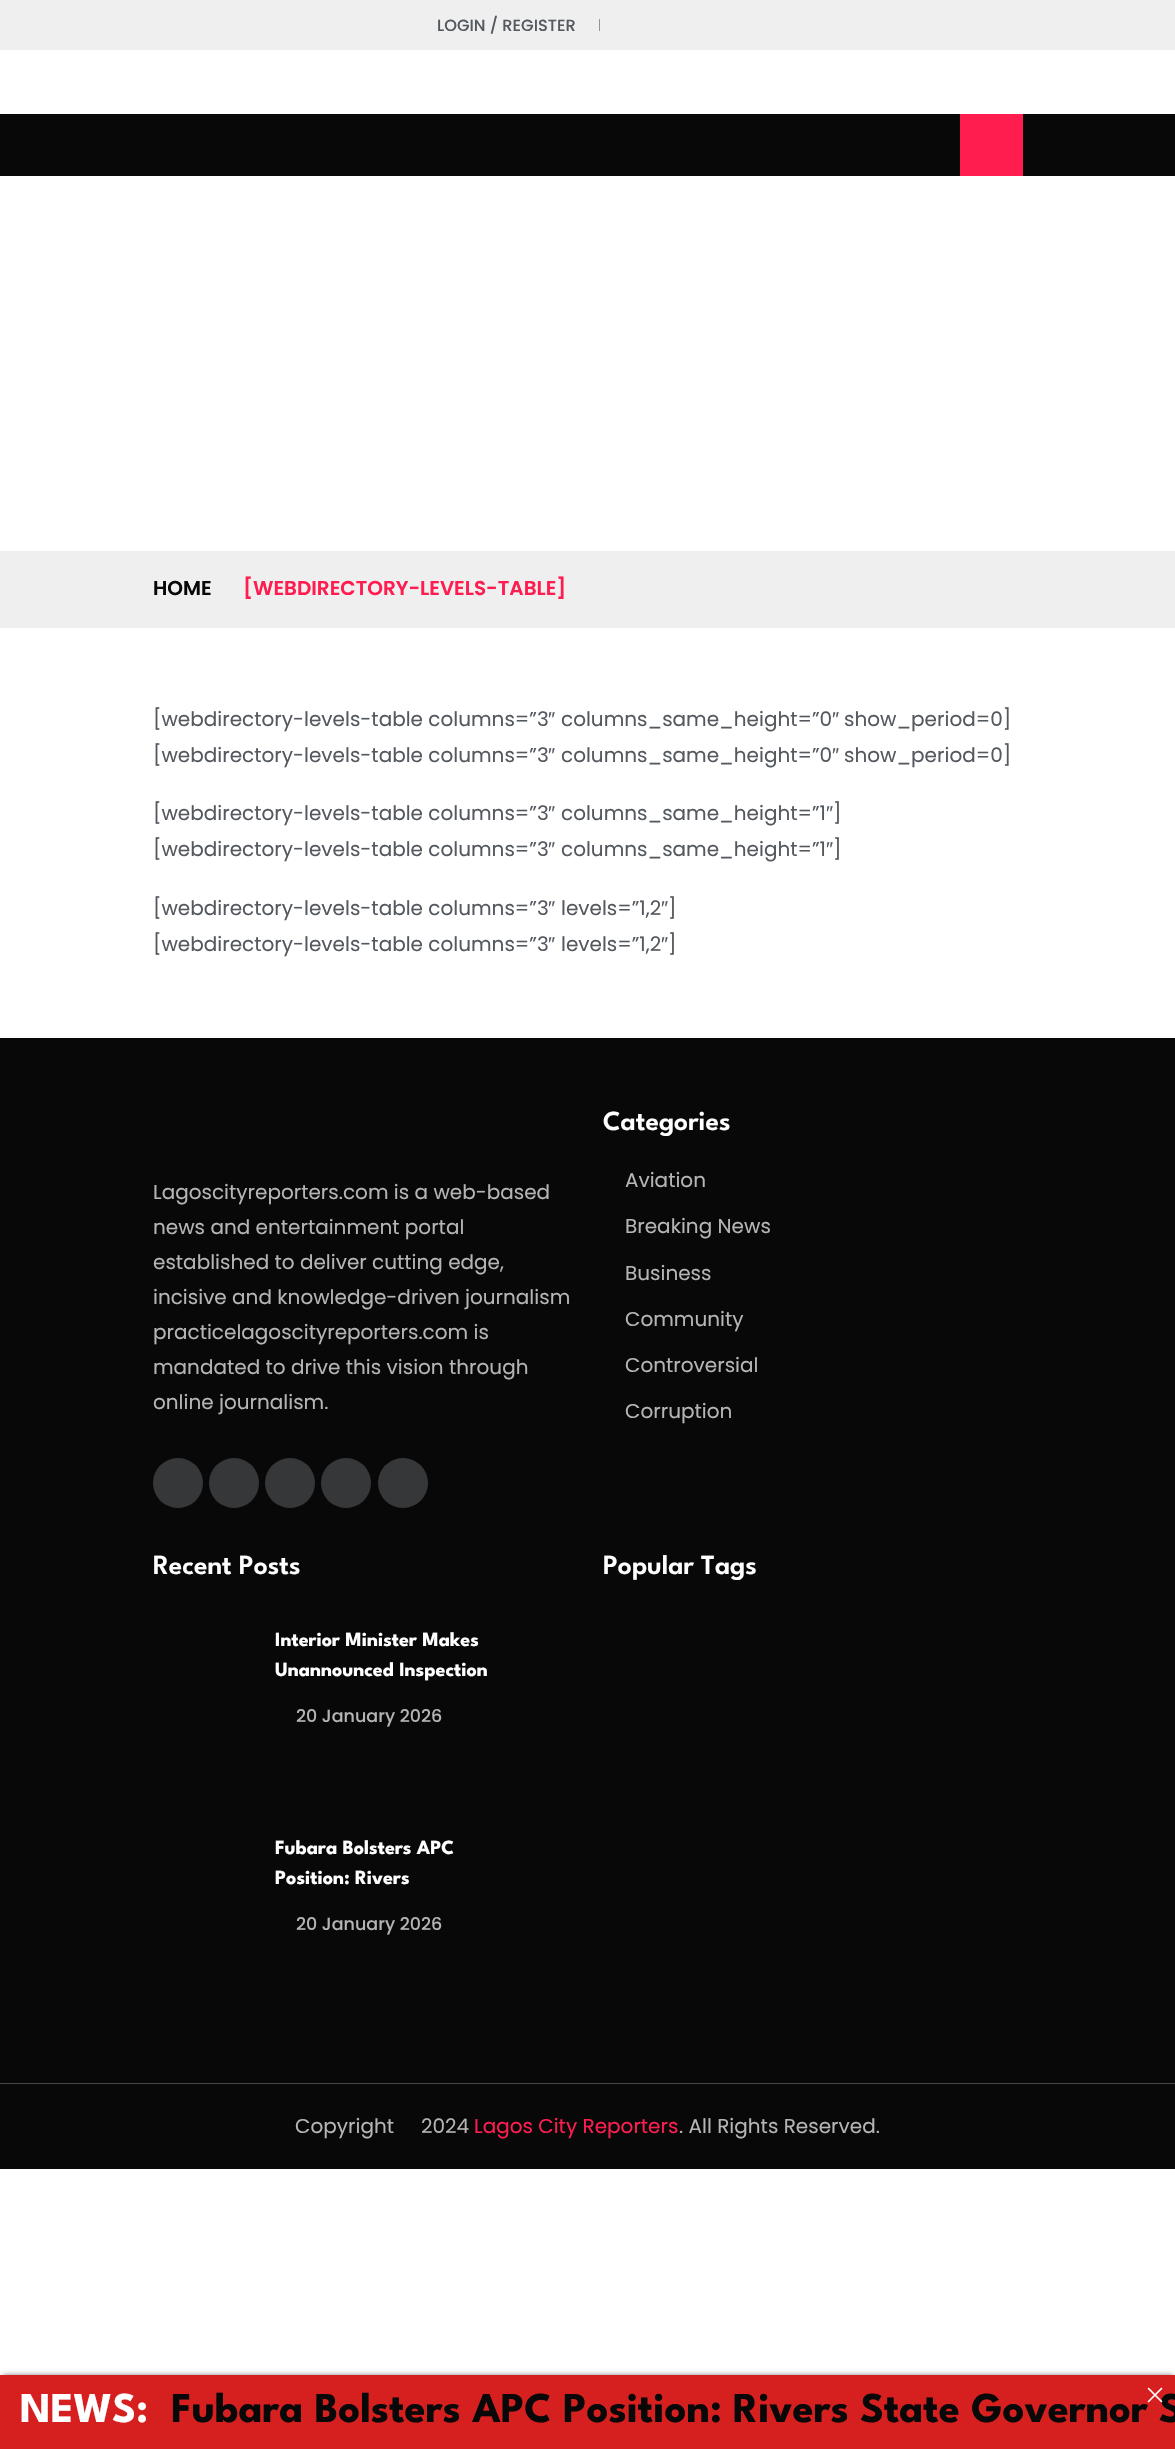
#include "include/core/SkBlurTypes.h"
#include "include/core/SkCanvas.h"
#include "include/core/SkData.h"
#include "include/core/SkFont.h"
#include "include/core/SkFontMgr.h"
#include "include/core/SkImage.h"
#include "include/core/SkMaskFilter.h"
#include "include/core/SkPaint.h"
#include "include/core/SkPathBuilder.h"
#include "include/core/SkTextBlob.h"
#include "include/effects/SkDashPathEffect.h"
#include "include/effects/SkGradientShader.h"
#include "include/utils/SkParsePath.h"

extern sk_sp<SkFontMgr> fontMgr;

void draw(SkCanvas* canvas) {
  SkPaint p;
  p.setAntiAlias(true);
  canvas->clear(SK_ColorWHITE);
  p.setColor(SkColorSetRGB(239, 239, 239));
  canvas->drawRect(SkRect::MakeLTRB(0, 0, 1175, 50), p);
  p.setColor(SkColorSetRGB(146, 149, 153));
  canvas->drawRect(SkRect::MakeLTRB(599, 19, 600, 31), p);
  p.setColor(SkColorSetRGB(8, 8, 9));
  canvas->drawRect(SkRect::MakeLTRB(0, 114, 1175, 176), p);
  p.setColor(SkColorSetRGB(255, 29, 80));
  canvas->drawRect(SkRect::MakeLTRB(960, 114, 1023, 176), p);
  p.setColor(SkColorSetRGB(239, 239, 239));
  canvas->drawRect(SkRect::MakeLTRB(0, 551, 1175, 628), p);
  p.setColor(SkColorSetRGB(8, 8, 9));
  canvas->drawRect(SkRect::MakeLTRB(0, 1038, 1175, 2169), p);
  p.setColor(SkColorSetRGB(54, 55, 57));
  canvas->drawCircle(178, 1483, 25, p);
  canvas->drawCircle(234, 1483, 25, p);
  canvas->drawCircle(290, 1483, 25, p);
  canvas->drawCircle(346, 1483, 25, p);
  canvas->drawCircle(403, 1483, 25, p);
  p.setColor(SkColorSetRGB(70, 70, 70));
  canvas->drawRect(SkRect::MakeLTRB(0, 2083, 1175, 2084), p);
  p.setColor(SkColorSetARGB(128, 0, 0, 0));
  p.setMaskFilter(SkMaskFilter::MakeBlur(kNormal_SkBlurStyle, 2.5f));
  canvas->drawRect(SkRect::MakeLTRB(3, 2375, 1173, 2445), p);
  p.setMaskFilter(nullptr);
  p.setColor(SkColorSetRGB(214, 31, 31));
  canvas->drawRect(SkRect::MakeLTRB(0, 2375, 1175, 2449), p);
  SkFont font1(fontMgr->matchFamilyStyle("Poppins", SkFontStyle(500, SkFontStyle::kNormal_Width, SkFontStyle::kUpright_Slant)), 16.25f);
  font1.setSubpixel(true);
  p.setColor(SkColorSetRGB(84, 89, 95));
  canvas->drawString("LOGIN / REGISTER", 437, 31, font1, p);
  SkFont font2(fontMgr->matchFamilyStyle("Poppins", SkFontStyle(600, SkFontStyle::kNormal_Width, SkFontStyle::kUpright_Slant)), 20);
  font2.setSubpixel(true);
  p.setColor(SkColorSetRGB(8, 8, 9));
  canvas->drawString("HOME", 153, 595, font2, p);
  p.setColor(SkColorSetRGB(255, 29, 80));
  canvas->drawString("[WEBDIRECTORY-LEVELS-TABLE]", 243, 595, font2, p);
  SkFont font3(fontMgr->matchFamilyStyle("Poppins", SkFontStyle::Normal()), 20);
  font3.setSubpixel(true);
  p.setColor(SkColorSetRGB(84, 89, 95));
  canvas->drawString("[webdirectory-levels-table columns=”3", 153, 726, font3, p);
  SkFont font4(fontMgr->matchFamilyStyle("Liberation Sans", SkFontStyle::Normal()), 20);
  font4.setSubpixel(true);
  canvas->drawString("″", 548, 726, font4, p);
  canvas->drawString("columns_same_height=”0", 561, 726, font3, p);
  canvas->drawString("″", 832, 726, font4, p);
  canvas->drawString("show_period=0]", 844, 726, font3, p);
  canvas->drawString("[webdirectory-levels-table columns=”3", 153, 762, font3, p);
  canvas->drawString("″", 548, 762, font4, p);
  canvas->drawString("columns_same_height=”0", 561, 762, font3, p);
  canvas->drawString("″", 832, 762, font4, p);
  canvas->drawString("show_period=0]", 844, 762, font3, p);
  canvas->drawString("[webdirectory-levels-table columns=”3", 153, 820, font3, p);
  canvas->drawString("″", 548, 820, font4, p);
  canvas->drawString("columns_same_height=”1", 561, 820, font3, p);
  canvas->drawString("″", 826, 820, font4, p);
  canvas->drawString("]", 833, 820, font3, p);
  canvas->drawString("[webdirectory-levels-table columns=”3", 153, 856, font3, p);
  canvas->drawString("″", 548, 856, font4, p);
  canvas->drawString("columns_same_height=”1", 561, 856, font3, p);
  canvas->drawString("″", 826, 856, font4, p);
  canvas->drawString("]", 833, 856, font3, p);
  canvas->drawString("[webdirectory-levels-table columns=”3", 153, 915, font3, p);
  canvas->drawString("″", 548, 915, font4, p);
  canvas->drawString("levels=”1,2", 561, 915, font3, p);
  canvas->drawString("″", 661, 915, font4, p);
  canvas->drawString("]", 668, 915, font3, p);
  canvas->drawString("[webdirectory-levels-table columns=”3", 153, 951, font3, p);
  canvas->drawString("″", 548, 951, font4, p);
  canvas->drawString("levels=”1,2", 561, 951, font3, p);
  canvas->drawString("″", 661, 951, font4, p);
  canvas->drawString("]", 668, 951, font3, p);
  p.setColor(SkColorSetRGB(181, 181, 181));
  canvas->drawString("Lagoscityreporters.com is a web-based", 153, 1199, font3, p);
  canvas->drawString("news and entertainment portal", 153, 1234, font3, p);
  canvas->drawString("established to deliver cutting edge,", 153, 1269, font3, p);
  canvas->drawString("incisive and knowledge-driven journalism", 153, 1304, font3, p);
  canvas->drawString("practicelagoscityreporters.com is", 153, 1339, font3, p);
  canvas->drawString("mandated to drive this vision through", 153, 1374, font3, p);
  canvas->drawString("online journalism.", 153, 1409, font3, p);
  SkFont font5(fontMgr->matchFamilyStyle("League Spartan", SkFontStyle(600, SkFontStyle::kNormal_Width, SkFontStyle::kUpright_Slant)), 27.5f);
  font5.setSubpixel(true);
  p.setColor(SK_ColorWHITE);
  canvas->drawString("Categories", 603, 1130, font5, p);
  p.setColor(SkColorSetRGB(181, 181, 181));
  canvas->drawString("Aviation", 625, 1187, font3, p);
  canvas->drawString("Breaking News", 625, 1233, font3, p);
  canvas->drawString("Business", 625, 1280, font3, p);
  canvas->drawString("Community", 625, 1326, font3, p);
  canvas->drawString("Controversial", 625, 1372, font3, p);
  canvas->drawString("Corruption", 625, 1418, font3, p);
  p.setColor(SK_ColorWHITE);
  canvas->drawString("Recent Posts", 153, 1574, font5, p);
  SkFont font6(fontMgr->matchFamilyStyle("League Spartan", SkFontStyle::Bold()), 20);
  font6.setSubpixel(true);
  canvas->drawString("Interior Minister Makes", 275, 1646, font6, p);
  canvas->drawString("Unannounced Inspection", 275, 1676, font6, p);
  SkFont font7(fontMgr->matchFamilyStyle("Poppins", SkFontStyle(500, SkFontStyle::kNormal_Width, SkFontStyle::kUpright_Slant)), 17.5f);
  font7.setSubpixel(true);
  p.setColor(SkColorSetRGB(181, 181, 181));
  canvas->drawString("20 January 2026", 296, 1722, font7, p);
  p.setColor(SK_ColorWHITE);
  canvas->drawString("Fubara Bolsters APC", 275, 1854, font6, p);
  canvas->drawString("Position: Rivers", 275, 1884, font6, p);
  p.setColor(SkColorSetRGB(181, 181, 181));
  canvas->drawString("20 January 2026", 296, 1930, font7, p);
  p.setColor(SK_ColorWHITE);
  canvas->drawString("Popular Tags", 603, 1574, font5, p);
  p.setColor(SkColorSetRGB(181, 181, 181));
  canvas->drawString("Copyright", 295, 2133, font3, p);
  canvas->drawString("2024", 421, 2133, font3, p);
  p.setColor(SkColorSetRGB(255, 29, 80));
  canvas->drawString("Lagos City Reporters", 474, 2133, font3, p);
  p.setColor(SkColorSetRGB(181, 181, 181));
  canvas->drawString(". All Rights Reserved.", 679, 2133, font3, p);
  SkFont font8(fontMgr->matchFamilyStyle("League Spartan", SkFontStyle::Bold()), 42.5f);
  font8.setSubpixel(true);
  p.setColor(SK_ColorWHITE);
  canvas->drawString("NEWS:", 20, 2422, font8, p);
  p.setColor(SkColorSetRGB(8, 8, 9));
  canvas->drawString("Fubara Bolsters APC Position: Rivers State Governor S", 171, 2422, font8, p);
  canvas->drawImageRect(SkImages::DeferredFromEncodedData(SkData::MakeFromFileName("images/1.png")), SkRect::MakeLTRB(1147, 2387, 1163, 2403), SkSamplingOptions());
}
